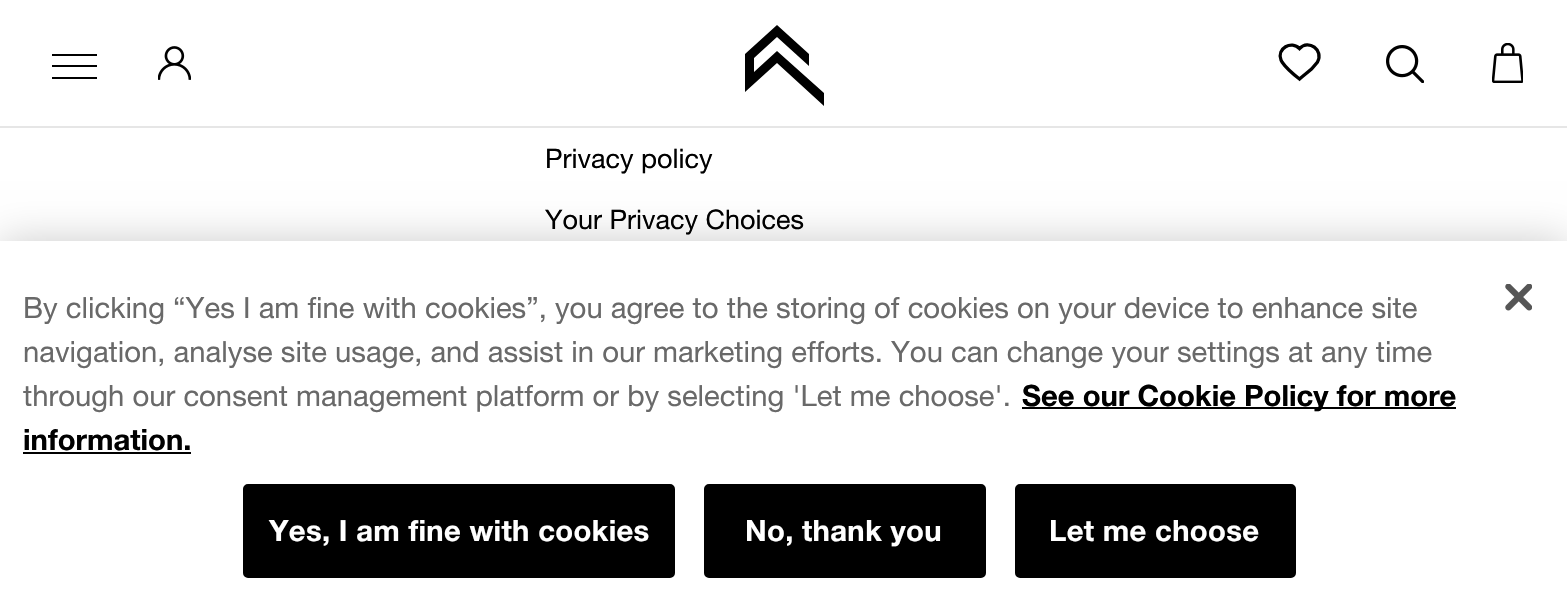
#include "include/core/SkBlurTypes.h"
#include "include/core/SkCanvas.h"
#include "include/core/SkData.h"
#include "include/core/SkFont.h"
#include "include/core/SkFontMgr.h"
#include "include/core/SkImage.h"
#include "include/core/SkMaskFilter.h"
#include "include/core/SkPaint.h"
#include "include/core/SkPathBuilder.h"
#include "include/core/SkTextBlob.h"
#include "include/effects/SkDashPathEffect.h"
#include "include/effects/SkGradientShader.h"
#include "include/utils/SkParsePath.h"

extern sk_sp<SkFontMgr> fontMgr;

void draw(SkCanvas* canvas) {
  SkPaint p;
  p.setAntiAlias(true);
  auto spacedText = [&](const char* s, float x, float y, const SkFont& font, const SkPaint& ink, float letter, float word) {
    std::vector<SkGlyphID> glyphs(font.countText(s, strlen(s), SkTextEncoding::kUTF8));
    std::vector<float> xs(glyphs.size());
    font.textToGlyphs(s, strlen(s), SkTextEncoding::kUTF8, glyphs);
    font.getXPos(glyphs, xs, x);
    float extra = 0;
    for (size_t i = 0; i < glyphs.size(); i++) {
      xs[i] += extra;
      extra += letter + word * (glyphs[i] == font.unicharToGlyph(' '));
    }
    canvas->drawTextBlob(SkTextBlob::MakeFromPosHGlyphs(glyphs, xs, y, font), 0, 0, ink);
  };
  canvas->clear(SK_ColorWHITE);
  p.setColor(SkColorSetRGB(230, 230, 230));
  canvas->drawRect(SkRect::MakeLTRB(0, 126, 1567, 128), p);
  p.setColor(SK_ColorBLACK);
  canvas->drawRect(SkRect::MakeLTRB(52, 54, 97, 56), p);
  canvas->drawRect(SkRect::MakeLTRB(52, 65, 97, 67), p);
  canvas->drawRect(SkRect::MakeLTRB(52, 77, 97, 79), p);
  canvas->drawImageRect(SkImages::DeferredFromEncodedData(SkData::MakeFromFileName("images/1.png")), SkRect::MakeLTRB(158, 46, 191, 80), SkSamplingOptions());
  canvas->drawPath(SkPathBuilder().moveTo(824, 93).lineTo(777, 51).lineTo(754, 72).lineTo(754, 58).lineTo(777, 37).lineTo(809, 66).lineTo(809, 54).lineTo(777, 25).lineTo(745, 54).lineTo(745, 92).lineTo(777, 63).lineTo(824, 106).close().detach(), p);
  p.setStyle(SkPaint::kStroke_Style);
  p.setStrokeWidth(3.3f);
  canvas->drawPath(SkPathBuilder().moveTo(1299.5f, 48.5f).cubicTo(1291.5f, 40, 1276.5f, 48.5f, 1281, 60).lineTo(1282, 62).cubicTo(1286.5f, 68.5f, 1293, 74, 1299.5f, 79).cubicTo(1303.5f, 75.5f, 1307.5f, 72.5f, 1311.5f, 69).lineTo(1317.5f, 62).cubicTo(1324, 50, 1308.5f, 39, 1299.5f, 48.5f).close().detach(), p);
  canvas->drawImageRect(SkImages::DeferredFromEncodedData(SkData::MakeFromFileName("images/2.png")), SkRect::MakeLTRB(1386, 45, 1424, 83), SkSamplingOptions());
  canvas->drawImageRect(SkImages::DeferredFromEncodedData(SkData::MakeFromFileName("images/3.png")), SkRect::MakeLTRB(1492, 43, 1523, 83), SkSamplingOptions());
  p.setStyle(SkPaint::kFill_Style);
  p.setColor(SkColorSetARGB(51, 0, 0, 0));
  p.setMaskFilter(SkMaskFilter::MakeBlur(kNormal_SkBlurStyle, 20));
  canvas->drawRect(SkRect::MakeLTRB(0, 241, 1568, 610), p);
  p.setMaskFilter(nullptr);
  p.setColor(SK_ColorWHITE);
  canvas->drawRect(SkRect::MakeLTRB(0, 241, 1567, 609), p);
  p.setColor(SK_ColorBLACK);
  canvas->drawRect(SkRect::MakeLTRB(1022, 407, 1456, 409), p);
  canvas->drawRect(SkRect::MakeLTRB(23, 452, 191, 454), p);
  canvas->drawRoundRect(SkRect::MakeLTRB(244, 485, 674, 577), 4, 4, p);
  p.setStyle(SkPaint::kStroke_Style);
  p.setStrokeWidth(2);
  canvas->drawRoundRect(SkRect::MakeLTRB(244, 485, 674, 577), 4, 4, p);
  p.setStyle(SkPaint::kFill_Style);
  canvas->drawRoundRect(SkRect::MakeLTRB(705, 485, 985, 577), 4, 4, p);
  p.setStyle(SkPaint::kStroke_Style);
  canvas->drawRoundRect(SkRect::MakeLTRB(705, 485, 985, 577), 4, 4, p);
  p.setStyle(SkPaint::kFill_Style);
  canvas->drawRoundRect(SkRect::MakeLTRB(1016, 485, 1295, 577), 4, 4, p);
  p.setStyle(SkPaint::kStroke_Style);
  canvas->drawRoundRect(SkRect::MakeLTRB(1016, 485, 1295, 577), 4, 4, p);
  canvas->drawImageRect(SkImages::DeferredFromEncodedData(SkData::MakeFromFileName("images/4.png")), SkRect::MakeLTRB(1505, 284, 1532, 311), SkSamplingOptions());
  SkFont font1(fontMgr->matchFamilyStyle("Helvetica Neue", SkFontStyle::Normal()), 27);
  font1.setSubpixel(true);
  p.setStyle(SkPaint::kFill_Style);
  canvas->drawString("Privacy policy", 545, 168, font1, p);
  canvas->drawString("Your Privacy Choices", 545, 229, font1, p);
  SkFont font2(fontMgr->matchFamilyStyle("Helvetica Neue", SkFontStyle::Normal()), 29.25f);
  font2.setSubpixel(true);
  p.setColor(SkColorSetRGB(105, 105, 105));
  canvas->drawString("By clicking “Yes I am fine with cookies”, you agree to the storing of cookies on your device to enhance site", 23, 318, font2, p);
  canvas->drawString("navigation, analyse site usage, and assist in our marketing efforts. You can change your settings at any time", 23, 362, font2, p);
  canvas->drawString("through our consent management platform or by selecting 'Let me choose'.", 23, 406, font2, p);
  SkFont font3(fontMgr->matchFamilyStyle("Helvetica Neue", SkFontStyle::Bold()), 29.25f);
  font3.setSubpixel(true);
  p.setColor(SK_ColorBLACK);
  canvas->drawString("See our Cookie Policy for more", 1022, 406, font3, p);
  canvas->drawString("information.", 23, 450, font3, p);
  p.setColor(SK_ColorWHITE);
  spacedText("Yes, I am fine with cookies", 269, 541, font3, p, 0.3f, 0);
  spacedText("No, thank you", 745, 541, font3, p, 0.3f, 0);
  spacedText("Let me choose", 1049, 541, font3, p, 0.3f, 0);
}
